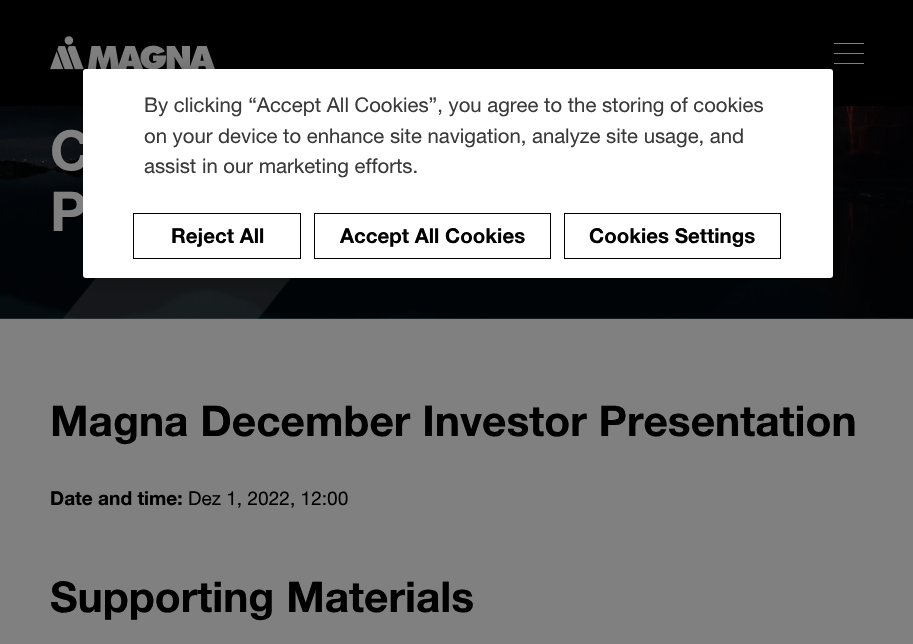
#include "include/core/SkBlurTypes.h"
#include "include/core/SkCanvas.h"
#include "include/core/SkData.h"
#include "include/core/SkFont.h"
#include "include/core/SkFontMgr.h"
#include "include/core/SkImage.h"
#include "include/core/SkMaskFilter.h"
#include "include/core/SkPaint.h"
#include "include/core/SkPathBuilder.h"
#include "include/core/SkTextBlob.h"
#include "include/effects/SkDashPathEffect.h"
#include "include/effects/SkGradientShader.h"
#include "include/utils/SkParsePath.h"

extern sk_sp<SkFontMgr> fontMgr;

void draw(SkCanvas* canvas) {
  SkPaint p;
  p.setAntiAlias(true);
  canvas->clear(SkColorSetRGB(128, 128, 128));
  p.setColor(SK_ColorBLACK);
  canvas->drawRect(SkRect::MakeLTRB(0, 0, 913, 106), p);
  canvas->drawImageRect(SkImages::DeferredFromEncodedData(SkData::MakeFromFileName("images/1.png")), SkRect::MakeLTRB(50, 36, 215, 70), SkSamplingOptions());
  p.setColor(SkColorSetRGB(128, 128, 128));
  canvas->drawRect(SkRect::MakeLTRB(834, 43, 864, 44), p);
  canvas->drawRect(SkRect::MakeLTRB(834, 53, 864, 54), p);
  canvas->drawRect(SkRect::MakeLTRB(834, 63, 864, 64), p);
  canvas->drawImageRect(SkImages::DeferredFromEncodedData(SkData::MakeFromFileName("images/2.png")), SkRect::MakeLTRB(0, 106, 913, 319), SkSamplingOptions());
  p.setColor(SkColorSetARGB(51, 0, 0, 0));
  p.setMaskFilter(SkMaskFilter::MakeBlur(kNormal_SkBlurStyle, 11));
  canvas->drawRoundRect(SkRect::MakeLTRB(83, 69, 833, 278), 3, 3, p);
  p.setMaskFilter(nullptr);
  SkFont font1(fontMgr->matchFamilyStyle("Helvetica Neue", SkFontStyle::Bold()), 55);
  font1.setSubpixel(true);
  p.setColor(SkColorSetRGB(128, 128, 128));
  canvas->drawString("C", 50, 170, font1, p);
  canvas->drawString("P", 50, 231, font1, p);
  p.setColor(SK_ColorWHITE);
  canvas->drawRoundRect(SkRect::MakeLTRB(83, 69, 833, 278), 3, 3, p);
  p.setStyle(SkPaint::kStroke_Style);
  p.setStrokeWidth(1);
  p.setColor(SK_ColorBLACK);
  canvas->drawRect(SkRect::MakeLTRB(564.5f, 213.5f, 780.5f, 258.5f), p);
  SkFont font2(fontMgr->matchFamilyStyle("Helvetica Neue", SkFontStyle::Bold()), 20.5f);
  font2.setSubpixel(true);
  p.setStyle(SkPaint::kFill_Style);
  canvas->drawString("Cookies Settings", 589, 243, font2, p);
  p.setStyle(SkPaint::kStroke_Style);
  canvas->drawRect(SkRect::MakeLTRB(314.5f, 213.5f, 550.5f, 258.5f), p);
  p.setStyle(SkPaint::kFill_Style);
  canvas->drawString("Accept All Cookies", 340, 243, font2, p);
  p.setStyle(SkPaint::kStroke_Style);
  canvas->drawRect(SkRect::MakeLTRB(133.5f, 213.5f, 300.5f, 258.5f), p);
  p.setStyle(SkPaint::kFill_Style);
  canvas->drawString("Reject All", 171, 243, font2, p);
  SkFont font3(fontMgr->matchFamilyStyle("Helvetica Neue", SkFontStyle::Normal()), 20.3f);
  font3.setSubpixel(true);
  p.setColor(SkColorSetRGB(58, 58, 58));
  canvas->drawString("assist in our marketing efforts.", 144, 173, font3, p);
  canvas->drawString("on your device to enhance site navigation, analyze site usage, and", 144, 143, font3, p);
  canvas->drawString("By clicking “Accept All Cookies”, you agree to the storing of cookies", 144, 112, font3, p);
  SkFont font4(fontMgr->matchFamilyStyle("Helvetica Neue", SkFontStyle::Bold()), 42.5f);
  font4.setSubpixel(true);
  p.setColor(SK_ColorBLACK);
  canvas->drawString("Magna December Investor Presentation", 50, 436, font4, p);
  SkFont font5(fontMgr->matchFamilyStyle("Helvetica Neue", SkFontStyle::Bold()), 19.1f);
  font5.setSubpixel(true);
  canvas->drawString("Date and time:", 50, 505, font5, p);
  SkFont font6(fontMgr->matchFamilyStyle("Helvetica Neue", SkFontStyle::Normal()), 19.1f);
  font6.setSubpixel(true);
  canvas->drawString("Dez 1, 2022, 12:00", 188, 505, font6, p);
  canvas->drawString("Supporting Materials", 50, 612, font4, p);
}
